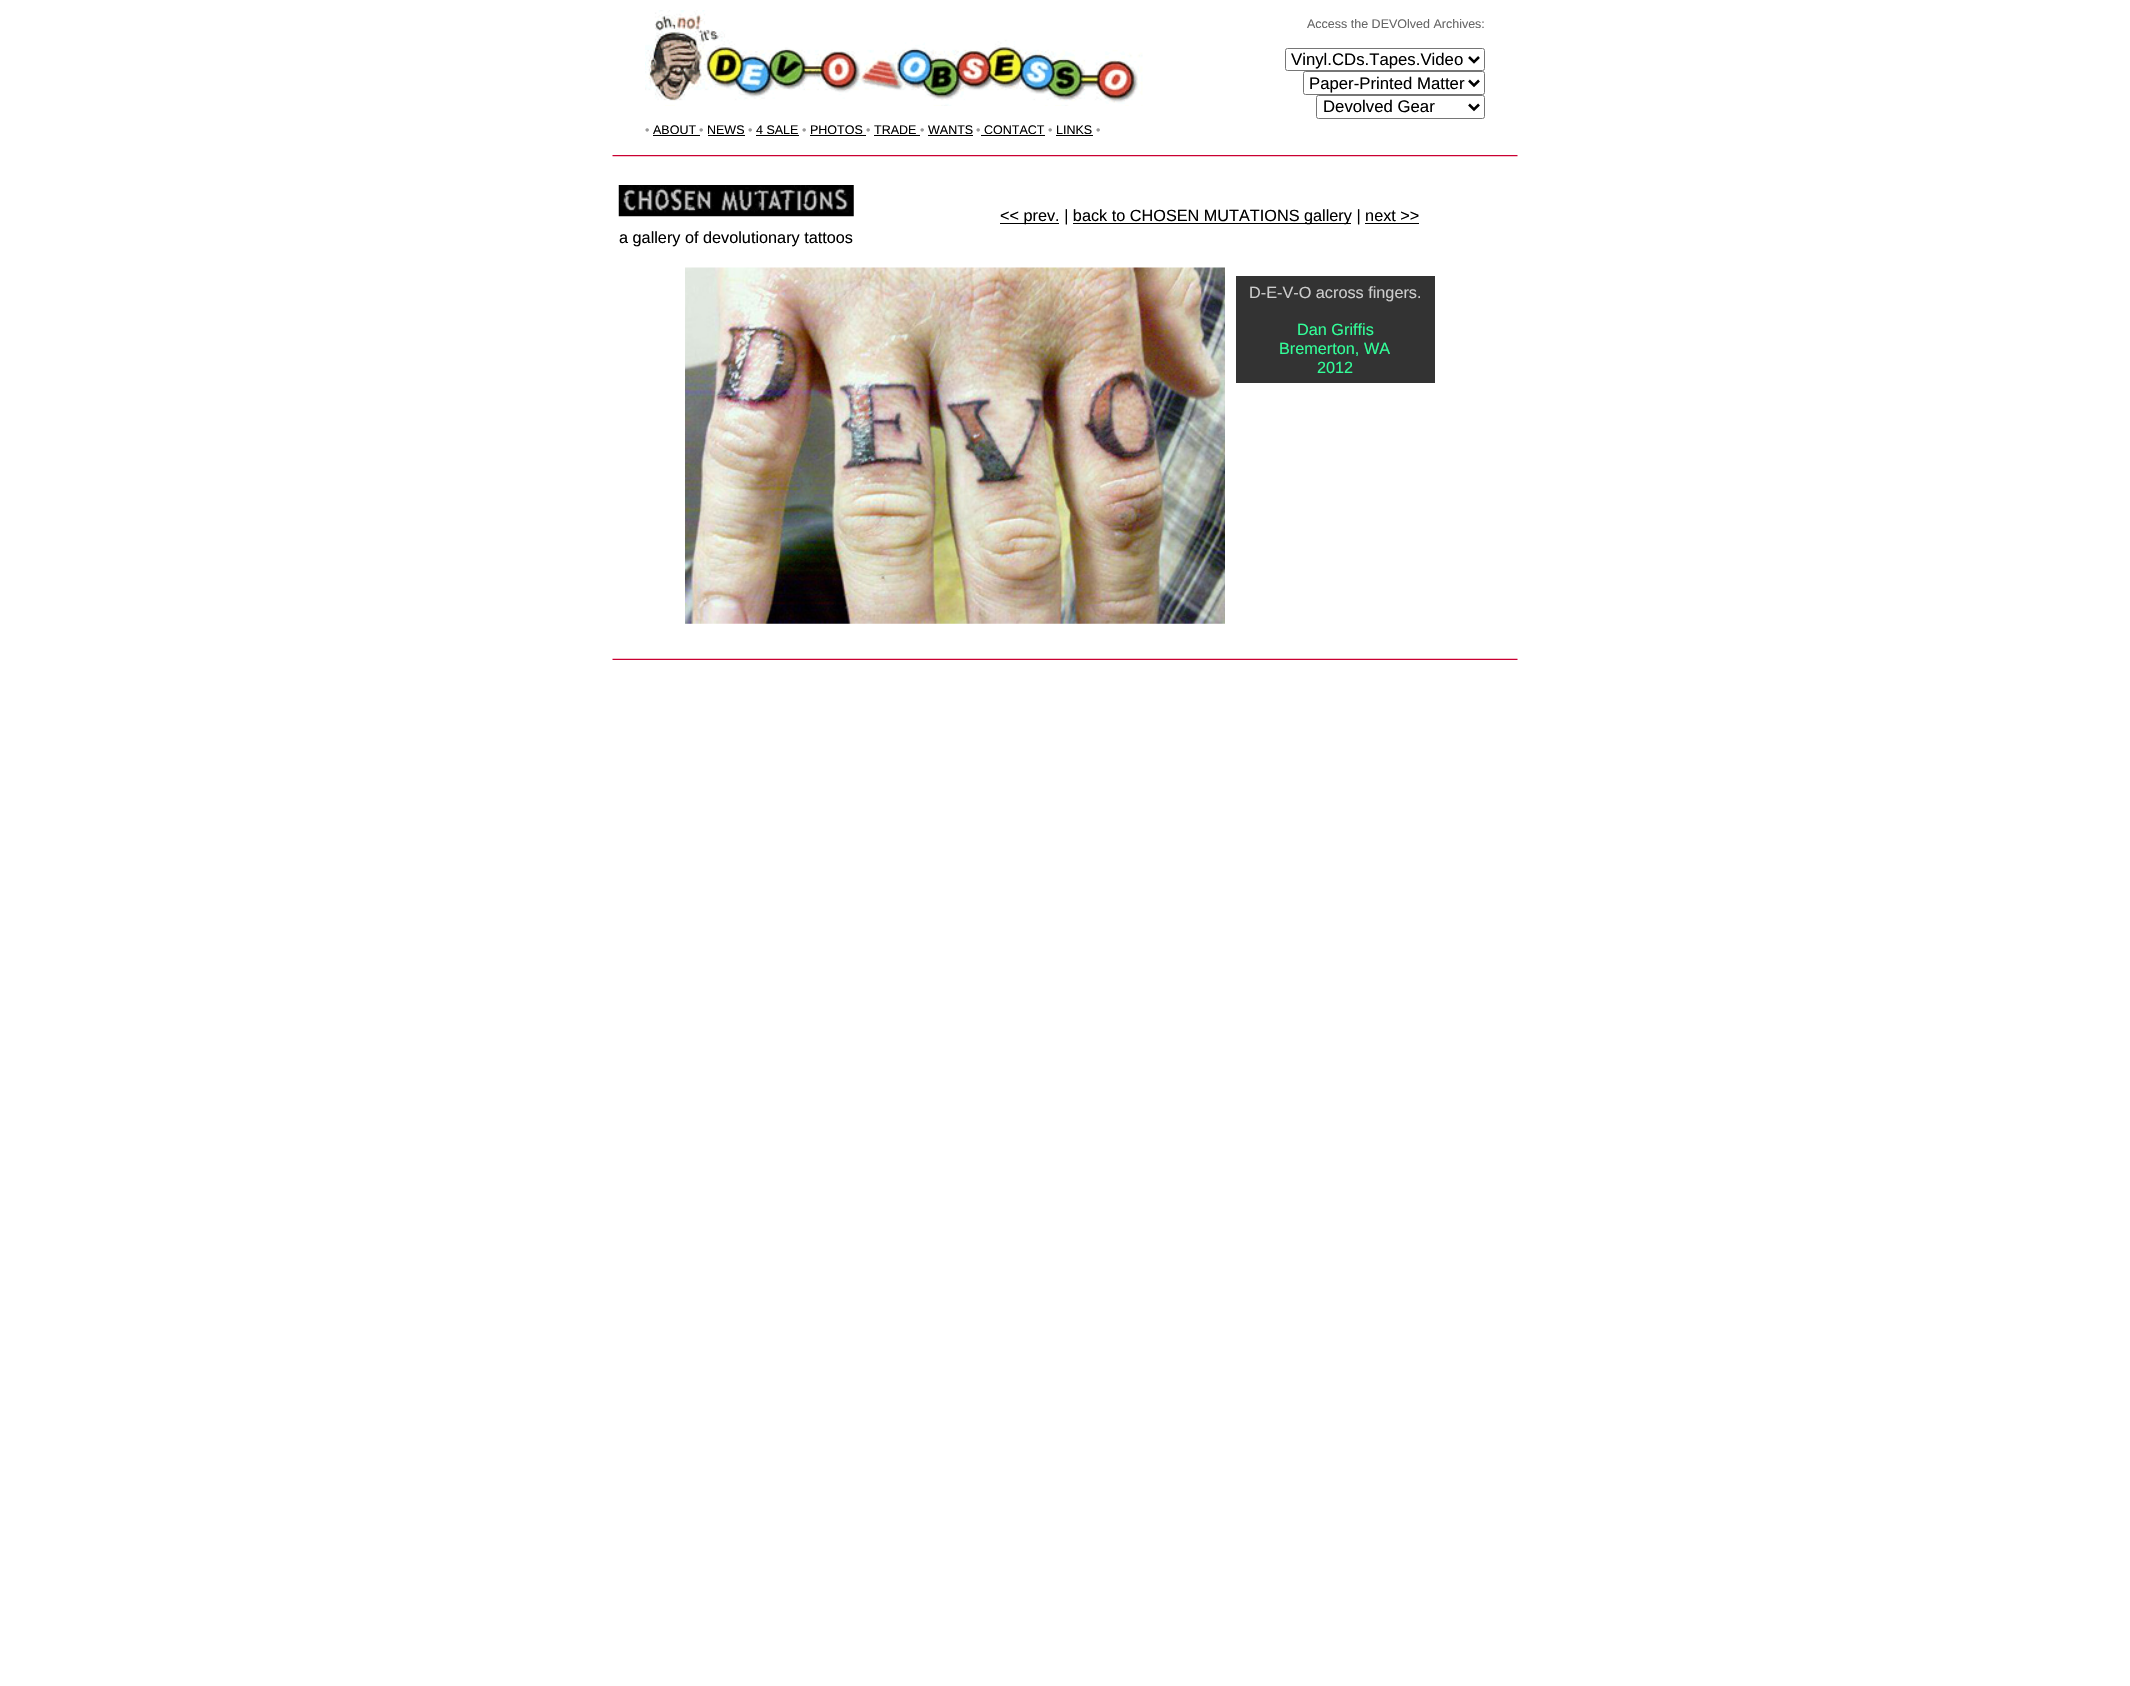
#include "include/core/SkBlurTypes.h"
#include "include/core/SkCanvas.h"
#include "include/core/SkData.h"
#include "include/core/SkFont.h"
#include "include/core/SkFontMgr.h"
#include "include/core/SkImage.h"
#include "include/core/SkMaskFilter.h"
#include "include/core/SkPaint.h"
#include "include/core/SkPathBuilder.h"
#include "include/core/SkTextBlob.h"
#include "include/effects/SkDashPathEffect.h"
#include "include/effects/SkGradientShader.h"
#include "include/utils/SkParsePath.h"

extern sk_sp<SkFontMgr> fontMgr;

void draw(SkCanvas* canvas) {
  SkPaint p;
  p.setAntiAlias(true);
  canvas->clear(SK_ColorWHITE);
  canvas->drawImageRect(SkImages::DeferredFromEncodedData(SkData::MakeFromFileName("images/1.png")), SkRect::MakeLTRB(645, 10, 1143, 106), SkSamplingOptions());
  p.setColor(SK_ColorBLACK);
  canvas->drawRect(SkRect::MakeLTRB(653, 135, 700, 136), p);
  canvas->drawRect(SkRect::MakeLTRB(708, 135, 745, 136), p);
  canvas->drawRect(SkRect::MakeLTRB(756, 135, 799, 136), p);
  canvas->drawRect(SkRect::MakeLTRB(810, 135, 866, 136), p);
  canvas->drawRect(SkRect::MakeLTRB(874, 135, 920, 136), p);
  canvas->drawRect(SkRect::MakeLTRB(928, 135, 973, 136), p);
  canvas->drawRect(SkRect::MakeLTRB(981, 135, 1045, 136), p);
  canvas->drawRect(SkRect::MakeLTRB(1056, 135, 1093, 136), p);
  p.setStyle(SkPaint::kStroke_Style);
  p.setStrokeWidth(1);
  p.setColor(SkColorSetRGB(118, 118, 118));
  canvas->drawRoundRect(SkRect::MakeLTRB(1285.5f, 48.5f, 1484.5f, 70.5f), 2, 2, p);
  p.setStrokeWidth(2.5f);
  p.setColor(SK_ColorBLACK);
  canvas->drawPath(SkPathBuilder().moveTo(1469, 57).lineTo(1474, 62).lineTo(1479, 57).detach(), p);
  p.setStrokeWidth(1);
  p.setColor(SkColorSetRGB(118, 118, 118));
  canvas->drawRoundRect(SkRect::MakeLTRB(1303.5f, 71.5f, 1484.5f, 94.5f), 2, 2, p);
  p.setStrokeWidth(2.5f);
  p.setColor(SK_ColorBLACK);
  canvas->drawPath(SkPathBuilder().moveTo(1469, 80.5f).lineTo(1474, 85.5f).lineTo(1479, 80.5f).detach(), p);
  p.setStrokeWidth(1);
  p.setColor(SkColorSetRGB(118, 118, 118));
  canvas->drawRoundRect(SkRect::MakeLTRB(1316.5f, 95.5f, 1484.5f, 118.5f), 2, 2, p);
  p.setStrokeWidth(2.5f);
  p.setColor(SK_ColorBLACK);
  canvas->drawPath(SkPathBuilder().moveTo(1469, 104.5f).lineTo(1474, 109.5f).lineTo(1479, 104.5f).detach(), p);
  canvas->drawImageRect(SkImages::DeferredFromEncodedData(SkData::MakeFromFileName("images/2.png")), SkRect::MakeLTRB(612, 155, 1518, 157), SkSamplingOptions());
  p.setStyle(SkPaint::kFill_Style);
  canvas->drawRect(SkRect::MakeLTRB(1000, 223, 1059, 224), p);
  canvas->drawRect(SkRect::MakeLTRB(1073, 223, 1351, 224), p);
  canvas->drawRect(SkRect::MakeLTRB(1365, 223, 1419, 224), p);
  canvas->drawImageRect(SkImages::DeferredFromEncodedData(SkData::MakeFromFileName("images/3.png")), SkRect::MakeLTRB(618, 185, 854, 217), SkSamplingOptions());
  canvas->drawImageRect(SkImages::DeferredFromEncodedData(SkData::MakeFromFileName("images/4.png")), SkRect::MakeLTRB(685, 267, 1225, 624), SkSamplingOptions());
  p.setColor(SkColorSetRGB(51, 51, 51));
  canvas->drawRect(SkRect::MakeLTRB(1236, 276, 1435, 383), p);
  canvas->drawImageRect(SkImages::DeferredFromEncodedData(SkData::MakeFromFileName("images/5.png")), SkRect::MakeLTRB(612, 658, 1518, 660), SkSamplingOptions());
  SkFont font1(fontMgr->matchFamilyStyle("Liberation Sans", SkFontStyle::Normal()), 12.5f);
  font1.setSubpixel(true);
  p.setColor(SkColorSetRGB(102, 102, 102));
  canvas->drawString("Access the DEVOlved Archives:", 1307, 28, font1, p);
  p.setColor(SkColorSetRGB(153, 153, 153));
  canvas->drawString("•", 645, 134, font1, p);
  p.setColor(SK_ColorBLACK);
  canvas->drawString("ABOUT", 653, 134, font1, p);
  p.setColor(SkColorSetRGB(153, 153, 153));
  canvas->drawString("•", 699, 134, font1, p);
  p.setColor(SK_ColorBLACK);
  canvas->drawString("NEWS", 707, 134, font1, p);
  p.setColor(SkColorSetRGB(153, 153, 153));
  canvas->drawString("•", 748, 134, font1, p);
  p.setColor(SK_ColorBLACK);
  canvas->drawString("4 SALE", 756, 134, font1, p);
  p.setColor(SkColorSetRGB(153, 153, 153));
  canvas->drawString("•", 802, 134, font1, p);
  p.setColor(SK_ColorBLACK);
  canvas->drawString("PHOTOS", 810, 134, font1, p);
  p.setColor(SkColorSetRGB(153, 153, 153));
  canvas->drawString("•", 866, 134, font1, p);
  p.setColor(SK_ColorBLACK);
  canvas->drawString("TRADE", 874, 134, font1, p);
  p.setColor(SkColorSetRGB(153, 153, 153));
  canvas->drawString("•", 920, 134, font1, p);
  p.setColor(SK_ColorBLACK);
  canvas->drawString("WANTS", 928, 134, font1, p);
  p.setColor(SkColorSetRGB(153, 153, 153));
  canvas->drawString("•", 976, 134, font1, p);
  p.setColor(SK_ColorBLACK);
  canvas->drawString("CONTACT", 984, 134, font1, p);
  p.setColor(SkColorSetRGB(153, 153, 153));
  canvas->drawString("•", 1048, 134, font1, p);
  p.setColor(SK_ColorBLACK);
  canvas->drawString("LINKS", 1056, 134, font1, p);
  p.setColor(SkColorSetRGB(153, 153, 153));
  canvas->drawString("•", 1096, 134, font1, p);
  SkFont font2(fontMgr->matchFamilyStyle("Liberation Sans", SkFontStyle::Normal()), 16.75f);
  font2.setSubpixel(true);
  p.setColor(SK_ColorBLACK);
  canvas->drawString("Vinyl.CDs.Tapes.Video", 1291, 65, font2, p);
  canvas->drawString("Paper-Printed Matter", 1309, 89, font2, p);
  canvas->drawString("Devolved Gear", 1323, 112, font2, p);
  SkFont font3(fontMgr->matchFamilyStyle("Liberation Sans", SkFontStyle::Normal()), 16.25f);
  font3.setSubpixel(true);
  canvas->drawString("<< prev. | back to CHOSEN MUTATIONS", 1000, 221, font3, p);
  canvas->drawString("gallery | next >>", 1304, 221, font3, p);
  canvas->drawString("a gallery of devolutionary tattoos", 619, 243, font3, p);
  p.setColor(SkColorSetRGB(204, 204, 204));
  canvas->drawString("D-E-V-O across fingers.", 1249, 298, font3, p);
  p.setColor(SkColorSetRGB(51, 255, 153));
  canvas->drawString("Dan Griffis", 1297, 335, font3, p);
  canvas->drawString("Bremerton, WA", 1279, 354, font3, p);
  canvas->drawString("2012", 1317, 373, font3, p);
}
